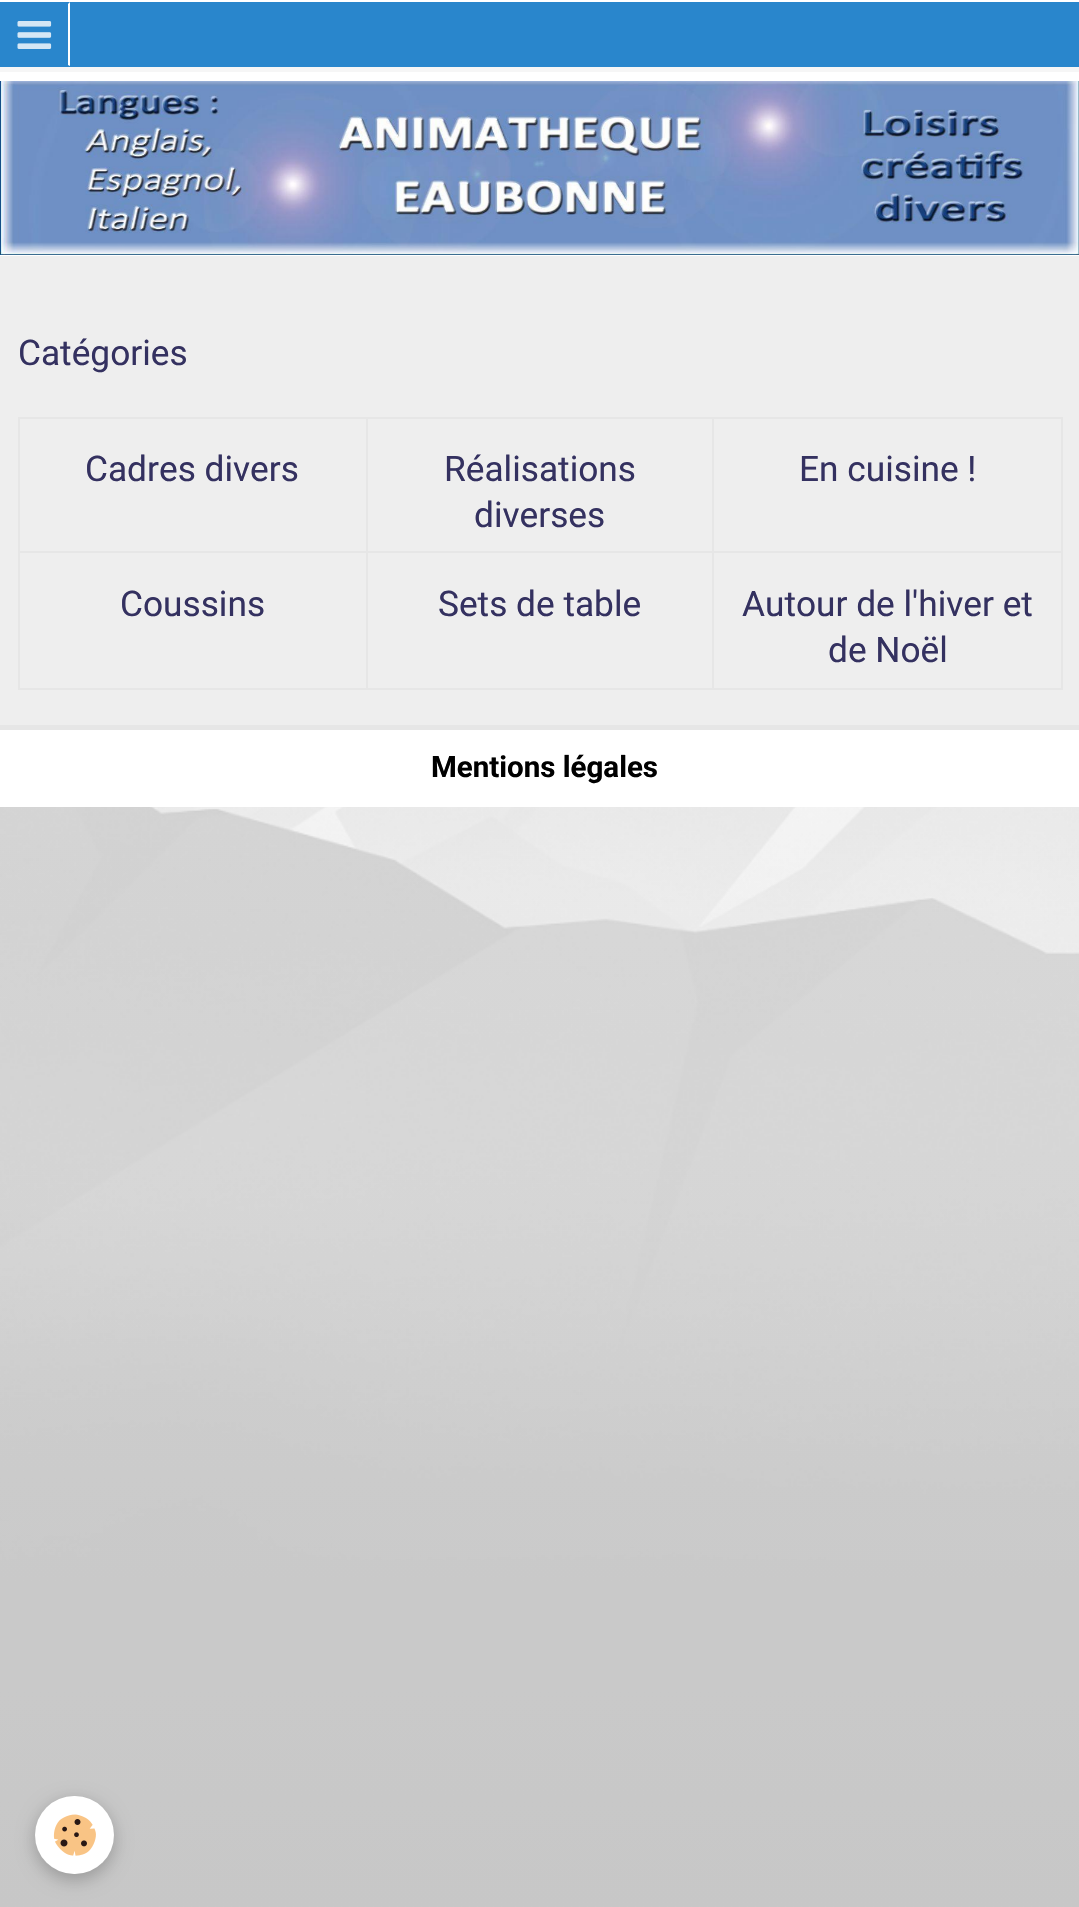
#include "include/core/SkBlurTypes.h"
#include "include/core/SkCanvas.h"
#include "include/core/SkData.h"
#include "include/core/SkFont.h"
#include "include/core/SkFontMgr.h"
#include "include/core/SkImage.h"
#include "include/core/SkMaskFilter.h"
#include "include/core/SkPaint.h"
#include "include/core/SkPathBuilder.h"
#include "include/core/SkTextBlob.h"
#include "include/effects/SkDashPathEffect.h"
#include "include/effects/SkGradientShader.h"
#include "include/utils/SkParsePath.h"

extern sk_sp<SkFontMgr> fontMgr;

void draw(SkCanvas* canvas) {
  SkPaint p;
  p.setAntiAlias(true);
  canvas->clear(SK_ColorWHITE);
  canvas->drawImageRect(SkImages::DeferredFromEncodedData(SkData::MakeFromFileName("images/1.png")), SkRect::MakeLTRB(0, 807, 1079, 1907), SkSamplingOptions());
  p.setColor(SkColorSetRGB(246, 246, 246));
  canvas->drawRect(SkRect::MakeLTRB(0, 67, 1079, 72), p);
  p.setColor(SkColorSetRGB(41, 134, 204));
  canvas->drawRect(SkRect::MakeLTRB(0, 2, 1079, 67), p);
  p.setColor(SK_ColorWHITE);
  canvas->drawPath(SkPathBuilder().moveTo(70, 2).lineTo(70, 66).lineTo(68, 65).lineTo(68, 4).close().detach(), p);
  canvas->drawImageRect(SkImages::DeferredFromEncodedData(SkData::MakeFromFileName("images/2.png")), SkRect::MakeLTRB(17, 21, 52, 49), SkSamplingOptions());
  canvas->drawImageRect(SkImages::DeferredFromEncodedData(SkData::MakeFromFileName("images/3.png")), SkRect::MakeLTRB(0, 81, 1079, 255), SkSamplingOptions());
  p.setColor(SkColorSetRGB(238, 238, 238));
  canvas->drawRect(SkRect::MakeLTRB(0, 256, 1079, 725), p);
  p.setColor(SkColorSetRGB(230, 230, 230));
  canvas->drawRect(SkRect::MakeLTRB(18, 417, 20, 690), p);
  canvas->drawRect(SkRect::MakeLTRB(19, 417, 1062, 419), p);
  canvas->drawRect(SkRect::MakeLTRB(366, 417, 368, 553), p);
  canvas->drawRect(SkRect::MakeLTRB(19, 551, 368, 553), p);
  canvas->drawRect(SkRect::MakeLTRB(712, 417, 714, 553), p);
  canvas->drawRect(SkRect::MakeLTRB(368, 551, 714, 553), p);
  canvas->drawRect(SkRect::MakeLTRB(1061, 417, 1063, 553), p);
  canvas->drawRect(SkRect::MakeLTRB(714, 551, 1062, 553), p);
  canvas->drawRect(SkRect::MakeLTRB(366, 551, 368, 690), p);
  canvas->drawRect(SkRect::MakeLTRB(19, 688, 368, 690), p);
  canvas->drawRect(SkRect::MakeLTRB(712, 551, 714, 690), p);
  canvas->drawRect(SkRect::MakeLTRB(368, 688, 714, 690), p);
  canvas->drawRect(SkRect::MakeLTRB(1061, 551, 1063, 690), p);
  canvas->drawRect(SkRect::MakeLTRB(714, 688, 1062, 690), p);
  canvas->drawRect(SkRect::MakeLTRB(0, 725, 1079, 730), p);
  p.setColor(SkColorSetARGB(61, 0, 0, 0));
  p.setMaskFilter(SkMaskFilter::MakeBlur(kNormal_SkBlurStyle, 9));
  canvas->drawRoundRect(SkRect::MakeLTRB(35, 1801, 114, 1880), 39.5f, 39.5f, p);
  p.setMaskFilter(nullptr);
  p.setColor(SK_ColorWHITE);
  canvas->drawRoundRect(SkRect::MakeLTRB(35, 1796, 114, 1874), 39, 39, p);
  canvas->drawImageRect(SkImages::DeferredFromEncodedData(SkData::MakeFromFileName("images/4.png")), SkRect::MakeLTRB(53, 1814, 96, 1856), SkSamplingOptions());
  SkFont font1(fontMgr->matchFamilyStyle("Roboto", SkFontStyle::Normal()), 35.25f);
  font1.setSubpixel(true);
  p.setColor(SkColorSetRGB(52, 49, 96));
  canvas->drawString("Catégories", 18, 365, font1, p);
  canvas->drawString("Cadres divers", 85, 481, font1, p);
  canvas->drawString("Réalisations", 444, 481, font1, p);
  canvas->drawString("diverses", 474, 527, font1, p);
  canvas->drawString("En cuisine !", 799, 481, font1, p);
  canvas->drawString("Coussins", 120, 616, font1, p);
  canvas->drawString("Sets de table", 438, 616, font1, p);
  canvas->drawString("Autour de l'hiver et", 742, 616, font1, p);
  canvas->drawString("de Noël", 828, 662, font1, p);
  SkFont font2(fontMgr->matchFamilyStyle("Roboto", SkFontStyle::Bold()), 29.5f);
  font2.setSubpixel(true);
  p.setColor(SK_ColorBLACK);
  canvas->drawString("Mentions légales", 431, 777, font2, p);
}
